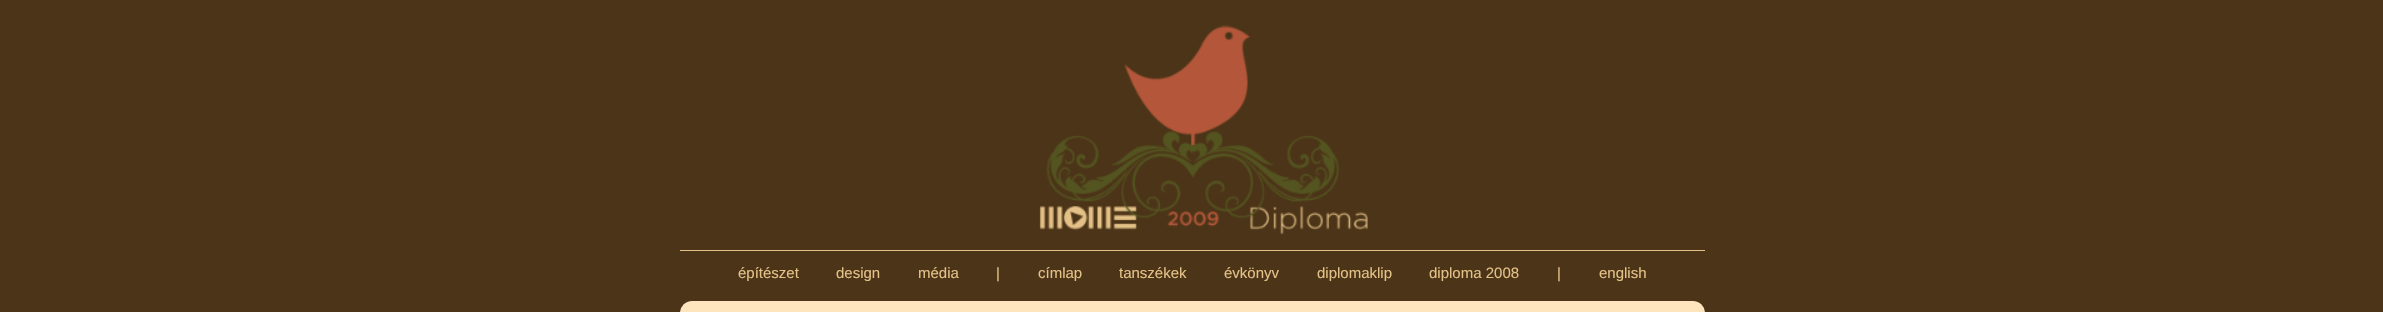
#include "include/core/SkBlurTypes.h"
#include "include/core/SkCanvas.h"
#include "include/core/SkData.h"
#include "include/core/SkFont.h"
#include "include/core/SkFontMgr.h"
#include "include/core/SkImage.h"
#include "include/core/SkMaskFilter.h"
#include "include/core/SkPaint.h"
#include "include/core/SkPathBuilder.h"
#include "include/core/SkTextBlob.h"
#include "include/effects/SkDashPathEffect.h"
#include "include/effects/SkGradientShader.h"
#include "include/utils/SkParsePath.h"

extern sk_sp<SkFontMgr> fontMgr;

void draw(SkCanvas* canvas) {
  SkPaint p;
  p.setAntiAlias(true);
  canvas->clear(SkColorSetRGB(76, 52, 24));
  canvas->drawImageRect(SkImages::DeferredFromEncodedData(SkData::MakeFromFileName("images/1.png")), SkRect::MakeLTRB(1039, 25, 1368, 234), SkSamplingOptions());
  p.setColor(SkColorSetRGB(227, 193, 135));
  canvas->drawRect(SkRect::MakeLTRB(680, 250, 1705, 251), p);
  p.setColor(SkColorSetRGB(254, 229, 189));
  canvas->drawRoundRect(SkRect::MakeLTRB(680, 301, 1705, 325), 13, 13, p);
  SkFont font1(fontMgr->matchFamilyStyle("Liberation Sans", SkFontStyle::Normal()), 15);
  font1.setSubpixel(true);
  p.setColor(SkColorSetRGB(227, 193, 135));
  canvas->drawString("építészet", 738, 278, font1, p);
  canvas->drawString("design", 836, 278, font1, p);
  canvas->drawString("média", 918, 278, font1, p);
  canvas->drawString("|", 996, 278, font1, p);
  canvas->drawString("címlap", 1038, 278, font1, p);
  canvas->drawString("tanszékek", 1119, 278, font1, p);
  canvas->drawString("évkönyv", 1224, 278, font1, p);
  canvas->drawString("diplomaklip", 1317, 278, font1, p);
  canvas->drawString("diploma 2008", 1429, 278, font1, p);
  canvas->drawString("|", 1557, 278, font1, p);
  canvas->drawString("english", 1599, 278, font1, p);
}
